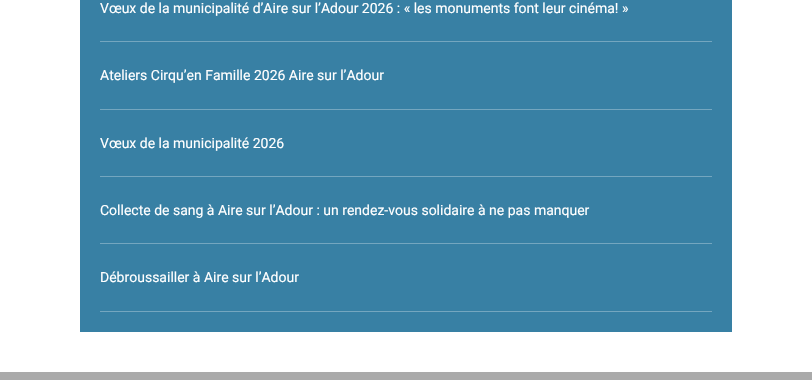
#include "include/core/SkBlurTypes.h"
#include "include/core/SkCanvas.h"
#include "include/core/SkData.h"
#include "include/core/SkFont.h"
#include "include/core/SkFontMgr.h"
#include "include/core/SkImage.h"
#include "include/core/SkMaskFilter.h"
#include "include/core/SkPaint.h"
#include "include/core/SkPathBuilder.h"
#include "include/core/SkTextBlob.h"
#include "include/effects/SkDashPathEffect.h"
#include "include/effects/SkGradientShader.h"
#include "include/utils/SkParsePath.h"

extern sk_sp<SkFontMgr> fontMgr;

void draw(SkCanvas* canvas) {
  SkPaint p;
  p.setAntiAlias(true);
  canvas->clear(SkColorSetRGB(170, 170, 170));
  p.setColor(SK_ColorWHITE);
  canvas->drawRect(SkRect::MakeLTRB(0, 0, 812, 372), p);
  p.setColor(SkColorSetRGB(56, 128, 164));
  canvas->drawRect(SkRect::MakeLTRB(80, 0, 732, 332), p);
  p.setColor(SkColorSetRGB(116, 166, 191));
  canvas->drawRect(SkRect::MakeLTRB(100, 41, 712, 42), p);
  canvas->drawRect(SkRect::MakeLTRB(100, 109, 712, 110), p);
  canvas->drawRect(SkRect::MakeLTRB(100, 176, 712, 177), p);
  canvas->drawRect(SkRect::MakeLTRB(100, 243, 712, 244), p);
  canvas->drawRect(SkRect::MakeLTRB(100, 311, 712, 312), p);
  SkFont font1(fontMgr->matchFamilyStyle("Roboto", SkFontStyle::Normal()), 14);
  font1.setSubpixel(true);
  p.setColor(SK_ColorWHITE);
  canvas->drawString("Vœux de la municipalité d’Aire sur l’Adour 2026 : « les monuments font leur cinéma! »", 100, 13, font1, p);
  canvas->drawString("Ateliers Cirqu’en Famille 2026 Aire sur l’Adour", 100, 80, font1, p);
  canvas->drawString("Vœux de la municipalité 2026", 100, 148, font1, p);
  canvas->drawString("Collecte de sang à Aire sur l’Adour : un rendez-vous solidaire à ne pas manquer", 100, 215, font1, p);
  canvas->drawString("Débroussailler à Aire sur l’Adour", 100, 282, font1, p);
}
